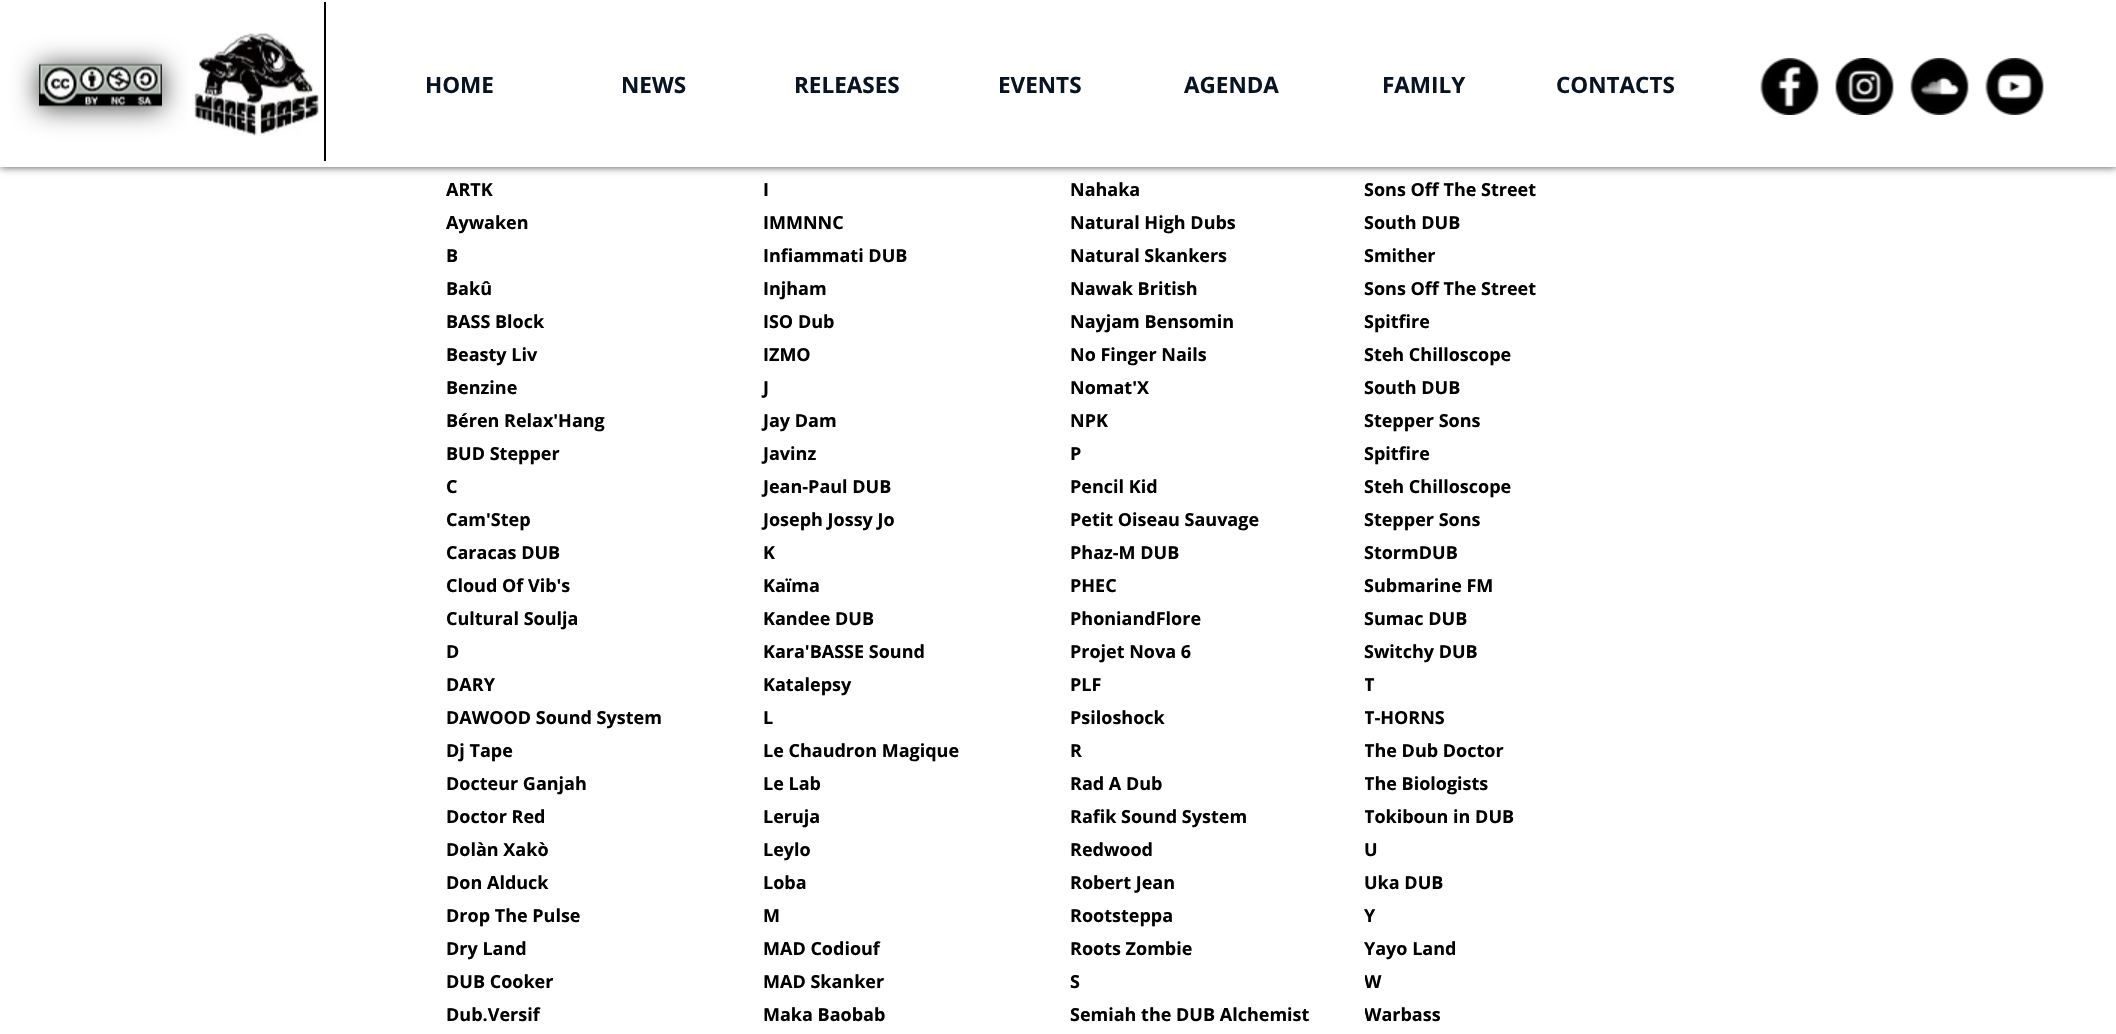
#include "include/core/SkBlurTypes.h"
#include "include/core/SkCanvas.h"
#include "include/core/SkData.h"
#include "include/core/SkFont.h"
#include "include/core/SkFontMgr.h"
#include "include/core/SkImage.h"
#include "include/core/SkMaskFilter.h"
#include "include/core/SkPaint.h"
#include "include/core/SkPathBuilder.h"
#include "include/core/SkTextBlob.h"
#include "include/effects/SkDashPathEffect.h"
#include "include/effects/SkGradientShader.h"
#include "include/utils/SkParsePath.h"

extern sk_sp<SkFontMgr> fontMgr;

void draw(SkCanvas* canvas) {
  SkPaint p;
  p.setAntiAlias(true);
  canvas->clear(SK_ColorWHITE);
  p.setColor(SkColorSetARGB(179, 0, 0, 0));
  p.setMaskFilter(SkMaskFilter::MakeBlur(kNormal_SkBlurStyle, 4));
  canvas->drawRect(SkRect::MakeLTRB(0, 0, 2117, 167), p);
  p.setMaskFilter(nullptr);
  p.setColor(SK_ColorWHITE);
  canvas->drawRect(SkRect::MakeLTRB(0, 0, 2116, 167), p);
  p.setColor(SkColorSetARGB(186, 0, 0, 0));
  p.setMaskFilter(SkMaskFilter::MakeBlur(kNormal_SkBlurStyle, 13.5f));
  canvas->drawRect(SkRect::MakeLTRB(39, 66, 162, 108), p);
  p.setMaskFilter(nullptr);
  canvas->drawImageRect(SkImages::DeferredFromEncodedData(SkData::MakeFromFileName("images/1.png")), SkRect::MakeLTRB(39, 63, 162, 107), SkSamplingOptions());
  canvas->drawImageRect(SkImages::DeferredFromEncodedData(SkData::MakeFromFileName("images/2.png")), SkRect::MakeLTRB(188, 32, 319, 136), SkSamplingOptions());
  p.setColor(SK_ColorBLACK);
  canvas->drawRect(SkRect::MakeLTRB(324, 2, 326, 161), p);
  canvas->drawImageRect(SkImages::DeferredFromEncodedData(SkData::MakeFromFileName("images/3.png")), SkRect::MakeLTRB(1760, 58, 1819, 115), SkSamplingOptions());
  canvas->drawImageRect(SkImages::DeferredFromEncodedData(SkData::MakeFromFileName("images/4.png")), SkRect::MakeLTRB(1835, 58, 1894, 115), SkSamplingOptions());
  canvas->drawImageRect(SkImages::DeferredFromEncodedData(SkData::MakeFromFileName("images/5.png")), SkRect::MakeLTRB(1910, 58, 1969, 115), SkSamplingOptions());
  canvas->drawImageRect(SkImages::DeferredFromEncodedData(SkData::MakeFromFileName("images/6.png")), SkRect::MakeLTRB(1985, 58, 2044, 115), SkSamplingOptions());
  SkFont font1(fontMgr->matchFamilyStyle("Open Sans", SkFontStyle::Bold()), 22.5f);
  font1.setSubpixel(true);
  p.setColor(SkColorSetRGB(8, 20, 35));
  canvas->drawString("HOME", 425, 93, font1, p);
  canvas->drawString("NEWS", 621, 93, font1, p);
  canvas->drawString("RELEASES", 794, 93, font1, p);
  canvas->drawString("EVENTS", 998, 93, font1, p);
  canvas->drawString("AGENDA", 1184, 93, font1, p);
  canvas->drawString("FAMILY", 1382, 93, font1, p);
  canvas->drawString("CONTACTS", 1556, 93, font1, p);
  SkFont font2(fontMgr->matchFamilyStyle("Open Sans", SkFontStyle::Bold()), 18);
  font2.setSubpixel(true);
  p.setColor(SK_ColorBLACK);
  canvas->drawString("ARTK", 446, 196, font2, p);
  canvas->drawString("Aywaken", 446, 229, font2, p);
  canvas->drawString("B", 446, 262, font2, p);
  canvas->drawString("Bakû", 446, 295, font2, p);
  canvas->drawString("BASS Block", 446, 328, font2, p);
  canvas->drawString("Beasty Liv", 446, 361, font2, p);
  canvas->drawString("Benzine", 446, 394, font2, p);
  canvas->drawString("Béren Relax'Hang", 446, 427, font2, p);
  canvas->drawString("BUD Stepper", 446, 460, font2, p);
  canvas->drawString("C", 446, 493, font2, p);
  canvas->drawString("Cam'Step", 446, 526, font2, p);
  canvas->drawString("Caracas DUB", 446, 559, font2, p);
  canvas->drawString("Cloud Of Vib's", 446, 592, font2, p);
  canvas->drawString("Cultural Soulja", 446, 625, font2, p);
  canvas->drawString("D", 446, 658, font2, p);
  canvas->drawString("DARY", 446, 691, font2, p);
  canvas->drawString("DAWOOD Sound System", 446, 724, font2, p);
  canvas->drawString("Dj Tape", 446, 757, font2, p);
  canvas->drawString("Docteur Ganjah", 446, 790, font2, p);
  canvas->drawString("Doctor Red", 446, 823, font2, p);
  canvas->drawString("Dolàn Xakò", 446, 856, font2, p);
  canvas->drawString("Don Alduck", 446, 889, font2, p);
  canvas->drawString("Drop The Pulse", 446, 922, font2, p);
  canvas->drawString("Dry Land", 446, 955, font2, p);
  canvas->drawString("DUB Cooker", 446, 988, font2, p);
  canvas->drawString("Dub.Versif", 446, 1021, font2, p);
  canvas->drawString("I", 763, 196, font2, p);
  canvas->drawString("IMMNNC", 763, 229, font2, p);
  canvas->drawString("Infiammati DUB", 763, 262, font2, p);
  canvas->drawString("Injham", 763, 295, font2, p);
  canvas->drawString("ISO Dub", 763, 328, font2, p);
  canvas->drawString("IZMO", 763, 361, font2, p);
  canvas->drawString("J", 763, 394, font2, p);
  canvas->drawString("Jay Dam", 763, 427, font2, p);
  canvas->drawString("Javinz", 763, 460, font2, p);
  canvas->drawString("Jean-Paul DUB", 763, 493, font2, p);
  canvas->drawString("Joseph Jossy Jo", 763, 526, font2, p);
  canvas->drawString("K", 763, 559, font2, p);
  canvas->drawString("Kaïma", 763, 592, font2, p);
  canvas->drawString("Kandee DUB", 763, 625, font2, p);
  canvas->drawString("Kara'BASSE Sound", 763, 658, font2, p);
  canvas->drawString("Katalepsy", 763, 691, font2, p);
  canvas->drawString("L", 763, 724, font2, p);
  canvas->drawString("Le Chaudron Magique", 763, 757, font2, p);
  canvas->drawString("Le Lab", 763, 790, font2, p);
  canvas->drawString("Leruja", 763, 823, font2, p);
  canvas->drawString("Leylo", 763, 856, font2, p);
  canvas->drawString("Loba", 763, 889, font2, p);
  canvas->drawString("M", 763, 922, font2, p);
  canvas->drawString("MAD Codiouf", 763, 955, font2, p);
  canvas->drawString("MAD Skanker", 763, 988, font2, p);
  canvas->drawString("Maka Baobab", 763, 1021, font2, p);
  canvas->drawString("Nahaka", 1070, 196, font2, p);
  canvas->drawString("Natural High Dubs", 1070, 229, font2, p);
  canvas->drawString("Natural Skankers", 1070, 262, font2, p);
  canvas->drawString("Nawak British", 1070, 295, font2, p);
  canvas->drawString("Nayjam Bensomin", 1070, 328, font2, p);
  canvas->drawString("No Finger Nails", 1070, 361, font2, p);
  canvas->drawString("Nomat'X", 1070, 394, font2, p);
  canvas->drawString("NPK", 1070, 427, font2, p);
  canvas->drawString("P", 1070, 460, font2, p);
  canvas->drawString("Pencil Kid", 1070, 493, font2, p);
  canvas->drawString("Petit Oiseau Sauvage", 1070, 526, font2, p);
  canvas->drawString("Phaz-M DUB", 1070, 559, font2, p);
  canvas->drawString("PHEC", 1070, 592, font2, p);
  canvas->drawString("PhoniandFlore", 1070, 625, font2, p);
  canvas->drawString("Projet Nova 6", 1070, 658, font2, p);
  canvas->drawString("PLF", 1070, 691, font2, p);
  canvas->drawString("Psiloshock", 1070, 724, font2, p);
  canvas->drawString("R", 1070, 757, font2, p);
  canvas->drawString("Rad A Dub", 1070, 790, font2, p);
  canvas->drawString("Rafik Sound System", 1070, 823, font2, p);
  canvas->drawString("Redwood", 1070, 856, font2, p);
  canvas->drawString("Robert Jean", 1070, 889, font2, p);
  canvas->drawString("Rootsteppa", 1070, 922, font2, p);
  canvas->drawString("Roots Zombie", 1070, 955, font2, p);
  canvas->drawString("S", 1070, 988, font2, p);
  canvas->drawString("Semiah the DUB Alchemist", 1070, 1021, font2, p);
  canvas->drawString("Sons Off The Street", 1364, 196, font2, p);
  canvas->drawString("South DUB", 1364, 229, font2, p);
  canvas->drawString("Smither", 1364, 262, font2, p);
  canvas->drawString("Sons Off The Street", 1364, 295, font2, p);
  canvas->drawString("Spitfire", 1364, 328, font2, p);
  canvas->drawString("Steh Chilloscope", 1364, 361, font2, p);
  canvas->drawString("South DUB", 1364, 394, font2, p);
  canvas->drawString("Stepper Sons", 1364, 427, font2, p);
  canvas->drawString("Spitfire", 1364, 460, font2, p);
  canvas->drawString("Steh Chilloscope", 1364, 493, font2, p);
  canvas->drawString("Stepper Sons", 1364, 526, font2, p);
  canvas->drawString("StormDUB", 1364, 559, font2, p);
  canvas->drawString("Submarine FM", 1364, 592, font2, p);
  canvas->drawString("Sumac DUB", 1364, 625, font2, p);
  canvas->drawString("Switchy DUB", 1364, 658, font2, p);
  canvas->save();
  canvas->clipRect(SkRect::MakeLTRB(1365, 669, 1671, 702));
  canvas->drawString("T", 1364, 691, font2, p);
  canvas->restore();
  canvas->save();
  canvas->clipRect(SkRect::MakeLTRB(1365, 702, 1671, 735));
  canvas->drawString("T-HORNS", 1364, 724, font2, p);
  canvas->restore();
  canvas->save();
  canvas->clipRect(SkRect::MakeLTRB(1365, 735, 1671, 768));
  canvas->drawString("The Dub Doctor", 1364, 757, font2, p);
  canvas->restore();
  canvas->save();
  canvas->clipRect(SkRect::MakeLTRB(1365, 768, 1671, 801));
  canvas->drawString("The Biologists", 1364, 790, font2, p);
  canvas->restore();
  canvas->save();
  canvas->clipRect(SkRect::MakeLTRB(1365, 801, 1671, 834));
  canvas->drawString("Tokiboun in DUB", 1364, 823, font2, p);
  canvas->restore();
  canvas->drawString("U", 1364, 856, font2, p);
  canvas->drawString("Uka DUB", 1364, 889, font2, p);
  canvas->drawString("Y", 1364, 922, font2, p);
  canvas->drawString("Yayo Land", 1364, 955, font2, p);
  canvas->save();
  canvas->clipRect(SkRect::MakeLTRB(1365, 966, 1671, 999));
  canvas->drawString("W", 1364, 988, font2, p);
  canvas->restore();
  canvas->save();
  canvas->clipRect(SkRect::MakeLTRB(1365, 999, 1671, 1032));
  canvas->drawString("Warbass", 1364, 1021, font2, p);
  canvas->restore();
}
